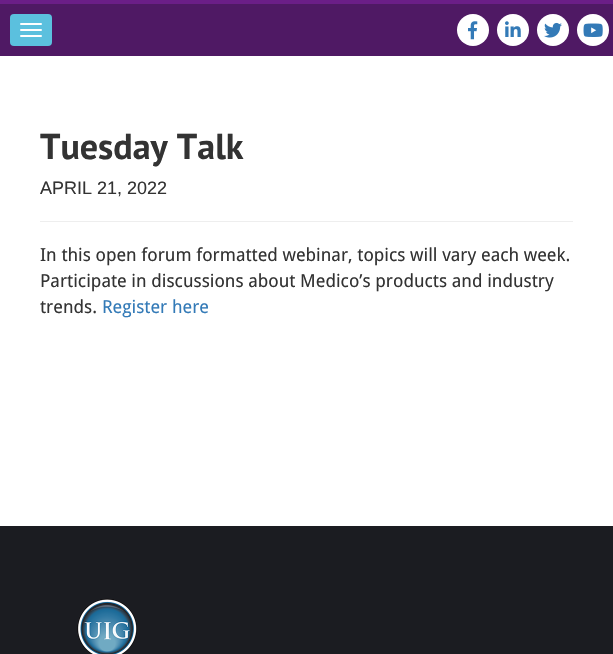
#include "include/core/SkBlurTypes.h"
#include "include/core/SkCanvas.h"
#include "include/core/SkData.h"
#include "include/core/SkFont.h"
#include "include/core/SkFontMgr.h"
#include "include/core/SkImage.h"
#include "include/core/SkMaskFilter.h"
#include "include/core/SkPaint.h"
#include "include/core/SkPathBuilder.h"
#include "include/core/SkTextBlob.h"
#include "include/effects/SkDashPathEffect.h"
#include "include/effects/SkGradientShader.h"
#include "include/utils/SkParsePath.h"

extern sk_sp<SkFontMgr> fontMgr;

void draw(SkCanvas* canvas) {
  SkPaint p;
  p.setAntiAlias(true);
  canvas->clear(SK_ColorWHITE);
  p.setColor(SkColorSetRGB(79, 25, 100));
  canvas->drawRect(SkRect::MakeLTRB(0, 4, 613, 56), p);
  p.setColor(SkColorSetRGB(107, 30, 135));
  canvas->drawRect(SkRect::MakeLTRB(0, 0, 613, 4), p);
  p.setColor(SkColorSetRGB(91, 192, 222));
  canvas->drawRoundRect(SkRect::MakeLTRB(10, 14, 52, 46), 4, 4, p);
  p.setColor(SK_ColorWHITE);
  canvas->drawRoundRect(SkRect::MakeLTRB(20, 23, 42, 25), 1, 1, p);
  canvas->drawRoundRect(SkRect::MakeLTRB(20, 29, 42, 31), 1, 1, p);
  canvas->drawRoundRect(SkRect::MakeLTRB(20, 35, 42, 37), 1, 1, p);
  canvas->drawCircle(473, 30, 16, p);
  canvas->drawImageRect(SkImages::DeferredFromEncodedData(SkData::MakeFromFileName("images/1.png")), SkRect::MakeLTRB(468, 21, 478, 40), SkSamplingOptions());
  canvas->drawCircle(513, 30, 16, p);
  canvas->drawImageRect(SkImages::DeferredFromEncodedData(SkData::MakeFromFileName("images/2.png")), SkRect::MakeLTRB(505, 21, 521, 37), SkSamplingOptions());
  canvas->drawCircle(553, 30, 16, p);
  canvas->drawImageRect(SkImages::DeferredFromEncodedData(SkData::MakeFromFileName("images/3.png")), SkRect::MakeLTRB(544, 22, 562, 38), SkSamplingOptions());
  canvas->drawCircle(593, 30, 16, p);
  canvas->drawImageRect(SkImages::DeferredFromEncodedData(SkData::MakeFromFileName("images/4.png")), SkRect::MakeLTRB(583, 23, 603, 37), SkSamplingOptions());
  p.setColor(SkColorSetRGB(238, 238, 238));
  canvas->drawRect(SkRect::MakeLTRB(40, 221, 573, 222), p);
  p.setColor(SkColorSetRGB(27, 28, 33));
  canvas->drawRect(SkRect::MakeLTRB(0, 526, 613, 654), p);
  canvas->drawImageRect(SkImages::DeferredFromEncodedData(SkData::MakeFromFileName("images/5.png")), SkRect::MakeLTRB(77, 598, 137, 654), SkSamplingOptions());
  SkFont font1(fontMgr->matchFamilyStyle("PT Sans", SkFontStyle::Bold()), 36);
  font1.setSubpixel(true);
  p.setColor(SkColorSetRGB(51, 51, 51));
  canvas->drawString("Tuesday Talk", 40, 159, font1, p);
  SkFont font2(fontMgr->matchFamilyStyle("Liberation Sans", SkFontStyle::Normal()), 18);
  font2.setSubpixel(true);
  canvas->drawString("APRIL 21, 2022", 40, 194, font2, p);
  SkFont font3(fontMgr->matchFamilyStyle("Droid Sans", SkFontStyle::Normal()), 18);
  font3.setSubpixel(true);
  canvas->drawString("In this open forum formatted webinar, topics will vary each week.", 40, 261, font3, p);
  canvas->drawString("Participate in discussions about Medico’s products and industry", 40, 287, font3, p);
  canvas->drawString("trends.", 40, 313, font3, p);
  p.setColor(SkColorSetRGB(51, 122, 183));
  canvas->drawString("Register here", 102, 313, font3, p);
}
